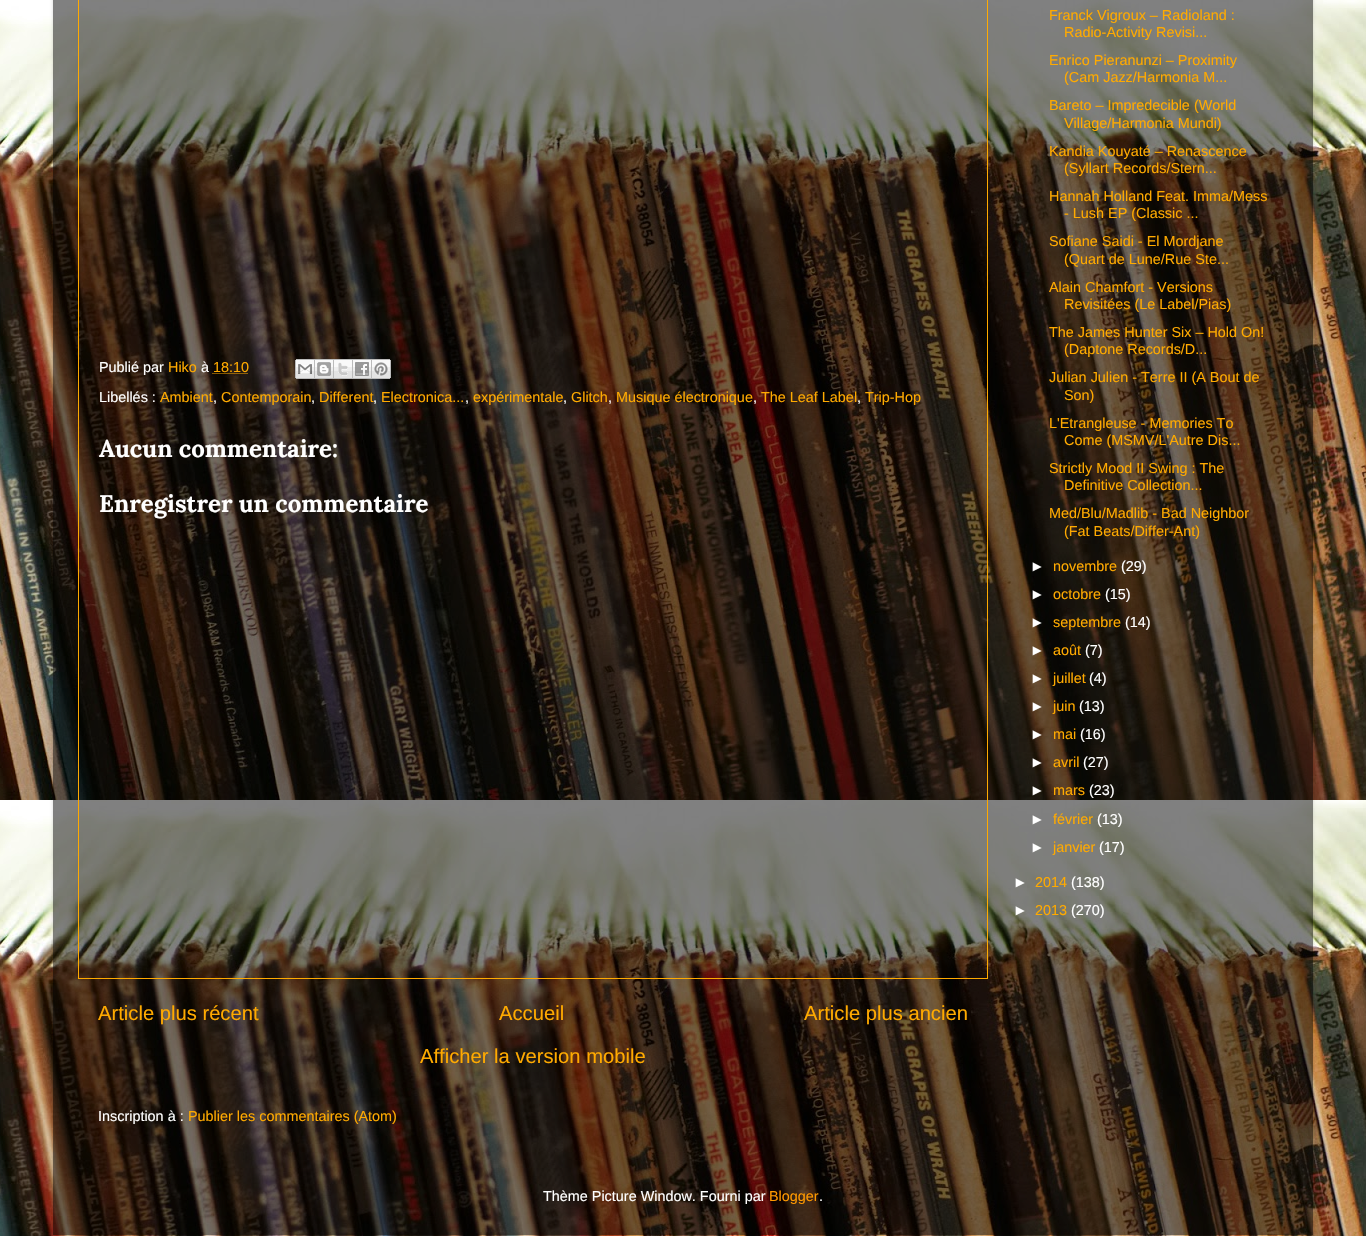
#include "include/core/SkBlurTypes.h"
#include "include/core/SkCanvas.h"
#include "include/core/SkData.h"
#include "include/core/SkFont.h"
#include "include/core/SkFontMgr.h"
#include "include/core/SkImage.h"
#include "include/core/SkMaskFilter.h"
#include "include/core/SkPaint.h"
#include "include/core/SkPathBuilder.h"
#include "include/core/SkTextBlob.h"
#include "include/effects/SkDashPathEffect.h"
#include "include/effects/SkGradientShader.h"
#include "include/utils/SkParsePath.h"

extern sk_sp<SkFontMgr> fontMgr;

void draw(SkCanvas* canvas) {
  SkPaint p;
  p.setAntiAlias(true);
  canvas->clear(SK_ColorWHITE);
  canvas->drawImageRect(SkImages::DeferredFromEncodedData(SkData::MakeFromFileName("images/1.png")), SkRect::MakeLTRB(0, 0, 1366, 1236), SkSamplingOptions());
  canvas->save();
  canvas->clipPath(SkPathBuilder(SkPathFillType::kEvenOdd).moveTo(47, 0).lineTo(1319, 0).lineTo(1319, 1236).lineTo(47, 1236).close().moveTo(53, -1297).lineTo(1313, -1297).lineTo(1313, 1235).lineTo(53, 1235).close().detach(), true);
  p.setColor(SkColorSetARGB(38, 0, 0, 0));
  p.setMaskFilter(SkMaskFilter::MakeBlur(kNormal_SkBlurStyle, 1.5f));
  canvas->drawRect(SkRect::MakeLTRB(53, -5, 1313, 1235), p);
  p.setMaskFilter(nullptr);
  canvas->restore();
  p.setStyle(SkPaint::kStroke_Style);
  p.setStrokeWidth(1);
  p.setColor(SkColorSetRGB(255, 170, 0));
  canvas->drawRect(SkRect::MakeLTRB(78.5f, -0.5f, 987.5f, 978.5f), p);
  p.setPathEffect(SkDashPathEffect::Make({{1, 1}}, 0));
  canvas->drawPath(SkPathBuilder().moveTo(212.5f, 373.5f).lineTo(248.5f, 373.5f).detach(), p);
  p.setPathEffect(nullptr);
  canvas->drawImageRect(SkImages::DeferredFromEncodedData(SkData::MakeFromFileName("images/2.png")), SkRect::MakeLTRB(295, 359, 315, 379), SkSamplingOptions());
  canvas->drawImageRect(SkImages::DeferredFromEncodedData(SkData::MakeFromFileName("images/3.png")), SkRect::MakeLTRB(315, 359, 334, 379), SkSamplingOptions());
  canvas->drawImageRect(SkImages::DeferredFromEncodedData(SkData::MakeFromFileName("images/4.png")), SkRect::MakeLTRB(334, 359, 353, 379), SkSamplingOptions());
  canvas->drawImageRect(SkImages::DeferredFromEncodedData(SkData::MakeFromFileName("images/5.png")), SkRect::MakeLTRB(353, 359, 372, 379), SkSamplingOptions());
  canvas->drawImageRect(SkImages::DeferredFromEncodedData(SkData::MakeFromFileName("images/6.png")), SkRect::MakeLTRB(372, 359, 391, 379), SkSamplingOptions());
  SkFont font1(fontMgr->matchFamilyStyle("Arimo", SkFontStyle::Normal()), 14.4f);
  font1.setSubpixel(true);
  p.setStyle(SkPaint::kFill_Style);
  p.setColor(SK_ColorWHITE);
  canvas->drawString("Publié par", 99, 372, font1, p);
  p.setColor(SkColorSetRGB(255, 170, 0));
  canvas->drawString("Hiko", 168, 372, font1, p);
  p.setColor(SK_ColorWHITE);
  canvas->drawString("à", 201, 372, font1, p);
  p.setColor(SkColorSetRGB(255, 170, 0));
  canvas->drawString("18:10", 213, 372, font1, p);
  p.setColor(SK_ColorWHITE);
  canvas->drawString("Libellés :", 99, 402, font1, p);
  p.setColor(SkColorSetRGB(255, 170, 0));
  canvas->drawString("Ambient", 160, 402, font1, p);
  p.setColor(SK_ColorWHITE);
  canvas->drawString(",", 213, 402, font1, p);
  p.setColor(SkColorSetRGB(255, 170, 0));
  canvas->drawString("Contemporain", 221, 402, font1, p);
  p.setColor(SK_ColorWHITE);
  canvas->drawString(",", 311, 402, font1, p);
  p.setColor(SkColorSetRGB(255, 170, 0));
  canvas->drawString("Different", 319, 402, font1, p);
  p.setColor(SK_ColorWHITE);
  canvas->drawString(",", 373, 402, font1, p);
  p.setColor(SkColorSetRGB(255, 170, 0));
  canvas->drawString("Electronica...", 381, 402, font1, p);
  p.setColor(SK_ColorWHITE);
  canvas->drawString(",", 465, 402, font1, p);
  p.setColor(SkColorSetRGB(255, 170, 0));
  canvas->drawString("expérimentale", 473, 402, font1, p);
  p.setColor(SK_ColorWHITE);
  canvas->drawString(",", 563, 402, font1, p);
  p.setColor(SkColorSetRGB(255, 170, 0));
  canvas->drawString("Glitch", 571, 402, font1, p);
  p.setColor(SK_ColorWHITE);
  canvas->drawString(",", 608, 402, font1, p);
  p.setColor(SkColorSetRGB(255, 170, 0));
  canvas->drawString("Musique électronique", 616, 402, font1, p);
  p.setColor(SK_ColorWHITE);
  canvas->drawString(",", 753, 402, font1, p);
  p.setColor(SkColorSetRGB(255, 170, 0));
  canvas->drawString("The Leaf Label", 761, 402, font1, p);
  p.setColor(SK_ColorWHITE);
  canvas->drawString(",", 857, 402, font1, p);
  p.setColor(SkColorSetRGB(255, 170, 0));
  canvas->drawString("Trip-Hop", 865, 402, font1, p);
  SkFont font2(fontMgr->matchFamilyStyle("Lora", SkFontStyle::Bold()), 24);
  font2.setSubpixel(true);
  p.setColor(SK_ColorWHITE);
  canvas->drawString("Aucun commentaire:", 99, 457, font2, p);
  canvas->drawString("Enregistrer un commentaire", 99, 512, font2, p);
  SkFont font3(fontMgr->matchFamilyStyle("Arimo", SkFontStyle::Normal()), 20.2f);
  font3.setSubpixel(true);
  p.setColor(SkColorSetRGB(255, 170, 0));
  canvas->drawString("Article plus récent", 98, 1020, font3, p);
  canvas->drawString("Accueil", 499, 1020, font3, p);
  canvas->drawString("Article plus ancien", 804, 1020, font3, p);
  canvas->drawString("Afficher la version mobile", 420, 1063, font3, p);
  p.setColor(SK_ColorWHITE);
  canvas->drawString("Inscription à :", 98, 1121, font1, p);
  p.setColor(SkColorSetRGB(255, 170, 0));
  canvas->drawString("Publier les commentaires (Atom)", 188, 1121, font1, p);
  canvas->drawString("Franck Vigroux – Radioland :", 1049, 20, font1, p);
  canvas->drawString("Radio-Activity Revisi...", 1064, 37, font1, p);
  canvas->drawString("Enrico Pieranunzi – Proximity", 1049, 65, font1, p);
  canvas->drawString("(Cam Jazz/Harmonia M...", 1064, 82, font1, p);
  canvas->drawString("Bareto – Impredecible (World", 1049, 110, font1, p);
  canvas->drawString("Village/Harmonia Mundi)", 1064, 128, font1, p);
  canvas->drawString("Kandia Kouyaté – Renascence", 1049, 156, font1, p);
  canvas->drawString("(Syllart Records/Stern...", 1064, 173, font1, p);
  canvas->drawString("Hannah Holland Feat. Imma/Mess", 1049, 201, font1, p);
  canvas->drawString("- Lush EP (Classic ...", 1064, 218, font1, p);
  canvas->drawString("Sofiane Saidi - El Mordjane", 1049, 246, font1, p);
  canvas->drawString("(Quart de Lune/Rue Ste...", 1064, 264, font1, p);
  canvas->drawString("Alain Chamfort - Versions", 1049, 292, font1, p);
  canvas->drawString("Revisitées (Le Label/Pias)", 1064, 309, font1, p);
  canvas->drawString("The James Hunter Six – Hold On!", 1049, 337, font1, p);
  canvas->drawString("(Daptone Records/D...", 1064, 354, font1, p);
  canvas->drawString("Julian Julien - Terre II (A Bout de", 1049, 382, font1, p);
  canvas->drawString("Son)", 1064, 400, font1, p);
  canvas->drawString("L'Etrangleuse - Memories To", 1049, 428, font1, p);
  canvas->drawString("Come (MSMV/L'Autre Dis...", 1064, 445, font1, p);
  canvas->drawString("Strictly Mood II Swing : The", 1049, 473, font1, p);
  canvas->drawString("Definitive Collection...", 1064, 490, font1, p);
  canvas->drawString("Med/Blu/Madlib - Bad Neighbor", 1049, 518, font1, p);
  canvas->drawString("(Fat Beats/Differ-Ant)", 1064, 536, font1, p);
  SkFont font4(fontMgr->matchFamilyStyle("Liberation Sans", SkFontStyle::Normal()), 14.4f);
  font4.setSubpixel(true);
  p.setColor(SK_ColorWHITE);
  canvas->drawString("►", 1030, 571, font4, p);
  p.setColor(SkColorSetRGB(255, 170, 0));
  canvas->drawString("novembre", 1053, 571, font1, p);
  p.setColor(SK_ColorWHITE);
  canvas->drawString("(29)", 1121, 571, font1, p);
  canvas->drawString("►", 1030, 599, font4, p);
  p.setColor(SkColorSetRGB(255, 170, 0));
  canvas->drawString("octobre", 1053, 599, font1, p);
  p.setColor(SK_ColorWHITE);
  canvas->drawString("(15)", 1105, 599, font1, p);
  canvas->drawString("►", 1030, 627, font4, p);
  p.setColor(SkColorSetRGB(255, 170, 0));
  canvas->drawString("septembre", 1053, 627, font1, p);
  p.setColor(SK_ColorWHITE);
  canvas->drawString("(14)", 1125, 627, font1, p);
  canvas->drawString("►", 1030, 655, font4, p);
  p.setColor(SkColorSetRGB(255, 170, 0));
  canvas->drawString("août", 1053, 655, font1, p);
  p.setColor(SK_ColorWHITE);
  canvas->drawString("(7)", 1085, 655, font1, p);
  canvas->drawString("►", 1030, 683, font4, p);
  p.setColor(SkColorSetRGB(255, 170, 0));
  canvas->drawString("juillet", 1053, 683, font1, p);
  p.setColor(SK_ColorWHITE);
  canvas->drawString("(4)", 1089, 683, font1, p);
  canvas->drawString("►", 1030, 711, font4, p);
  p.setColor(SkColorSetRGB(255, 170, 0));
  canvas->drawString("juin", 1053, 711, font1, p);
  p.setColor(SK_ColorWHITE);
  canvas->drawString("(13)", 1079, 711, font1, p);
  canvas->drawString("►", 1030, 739, font4, p);
  p.setColor(SkColorSetRGB(255, 170, 0));
  canvas->drawString("mai", 1053, 739, font1, p);
  p.setColor(SK_ColorWHITE);
  canvas->drawString("(16)", 1080, 739, font1, p);
  canvas->drawString("►", 1030, 767, font4, p);
  p.setColor(SkColorSetRGB(255, 170, 0));
  canvas->drawString("avril", 1053, 767, font1, p);
  p.setColor(SK_ColorWHITE);
  canvas->drawString("(27)", 1083, 767, font1, p);
  canvas->drawString("►", 1030, 795, font4, p);
  p.setColor(SkColorSetRGB(255, 170, 0));
  canvas->drawString("mars", 1053, 795, font1, p);
  p.setColor(SK_ColorWHITE);
  canvas->drawString("(23)", 1089, 795, font1, p);
  canvas->drawString("►", 1030, 824, font4, p);
  p.setColor(SkColorSetRGB(255, 170, 0));
  canvas->drawString("février", 1053, 824, font1, p);
  p.setColor(SK_ColorWHITE);
  canvas->drawString("(13)", 1097, 824, font1, p);
  canvas->drawString("►", 1030, 852, font4, p);
  p.setColor(SkColorSetRGB(255, 170, 0));
  canvas->drawString("janvier", 1053, 852, font1, p);
  p.setColor(SK_ColorWHITE);
  canvas->drawString("(17)", 1099, 852, font1, p);
  canvas->drawString("►", 1013, 887, font4, p);
  p.setColor(SkColorSetRGB(255, 170, 0));
  canvas->drawString("2014", 1035, 887, font1, p);
  p.setColor(SK_ColorWHITE);
  canvas->drawString("(138)", 1071, 887, font1, p);
  canvas->drawString("►", 1013, 915, font4, p);
  p.setColor(SkColorSetRGB(255, 170, 0));
  canvas->drawString("2013", 1035, 915, font1, p);
  p.setColor(SK_ColorWHITE);
  canvas->drawString("(270)", 1071, 915, font1, p);
  canvas->drawString("Thème Picture Window. Fourni par", 543, 1201, font1, p);
  p.setColor(SkColorSetRGB(255, 153, 0));
  canvas->drawString("Blogger", 769, 1201, font1, p);
  p.setColor(SK_ColorWHITE);
  canvas->drawString(".", 819, 1201, font1, p);
}
